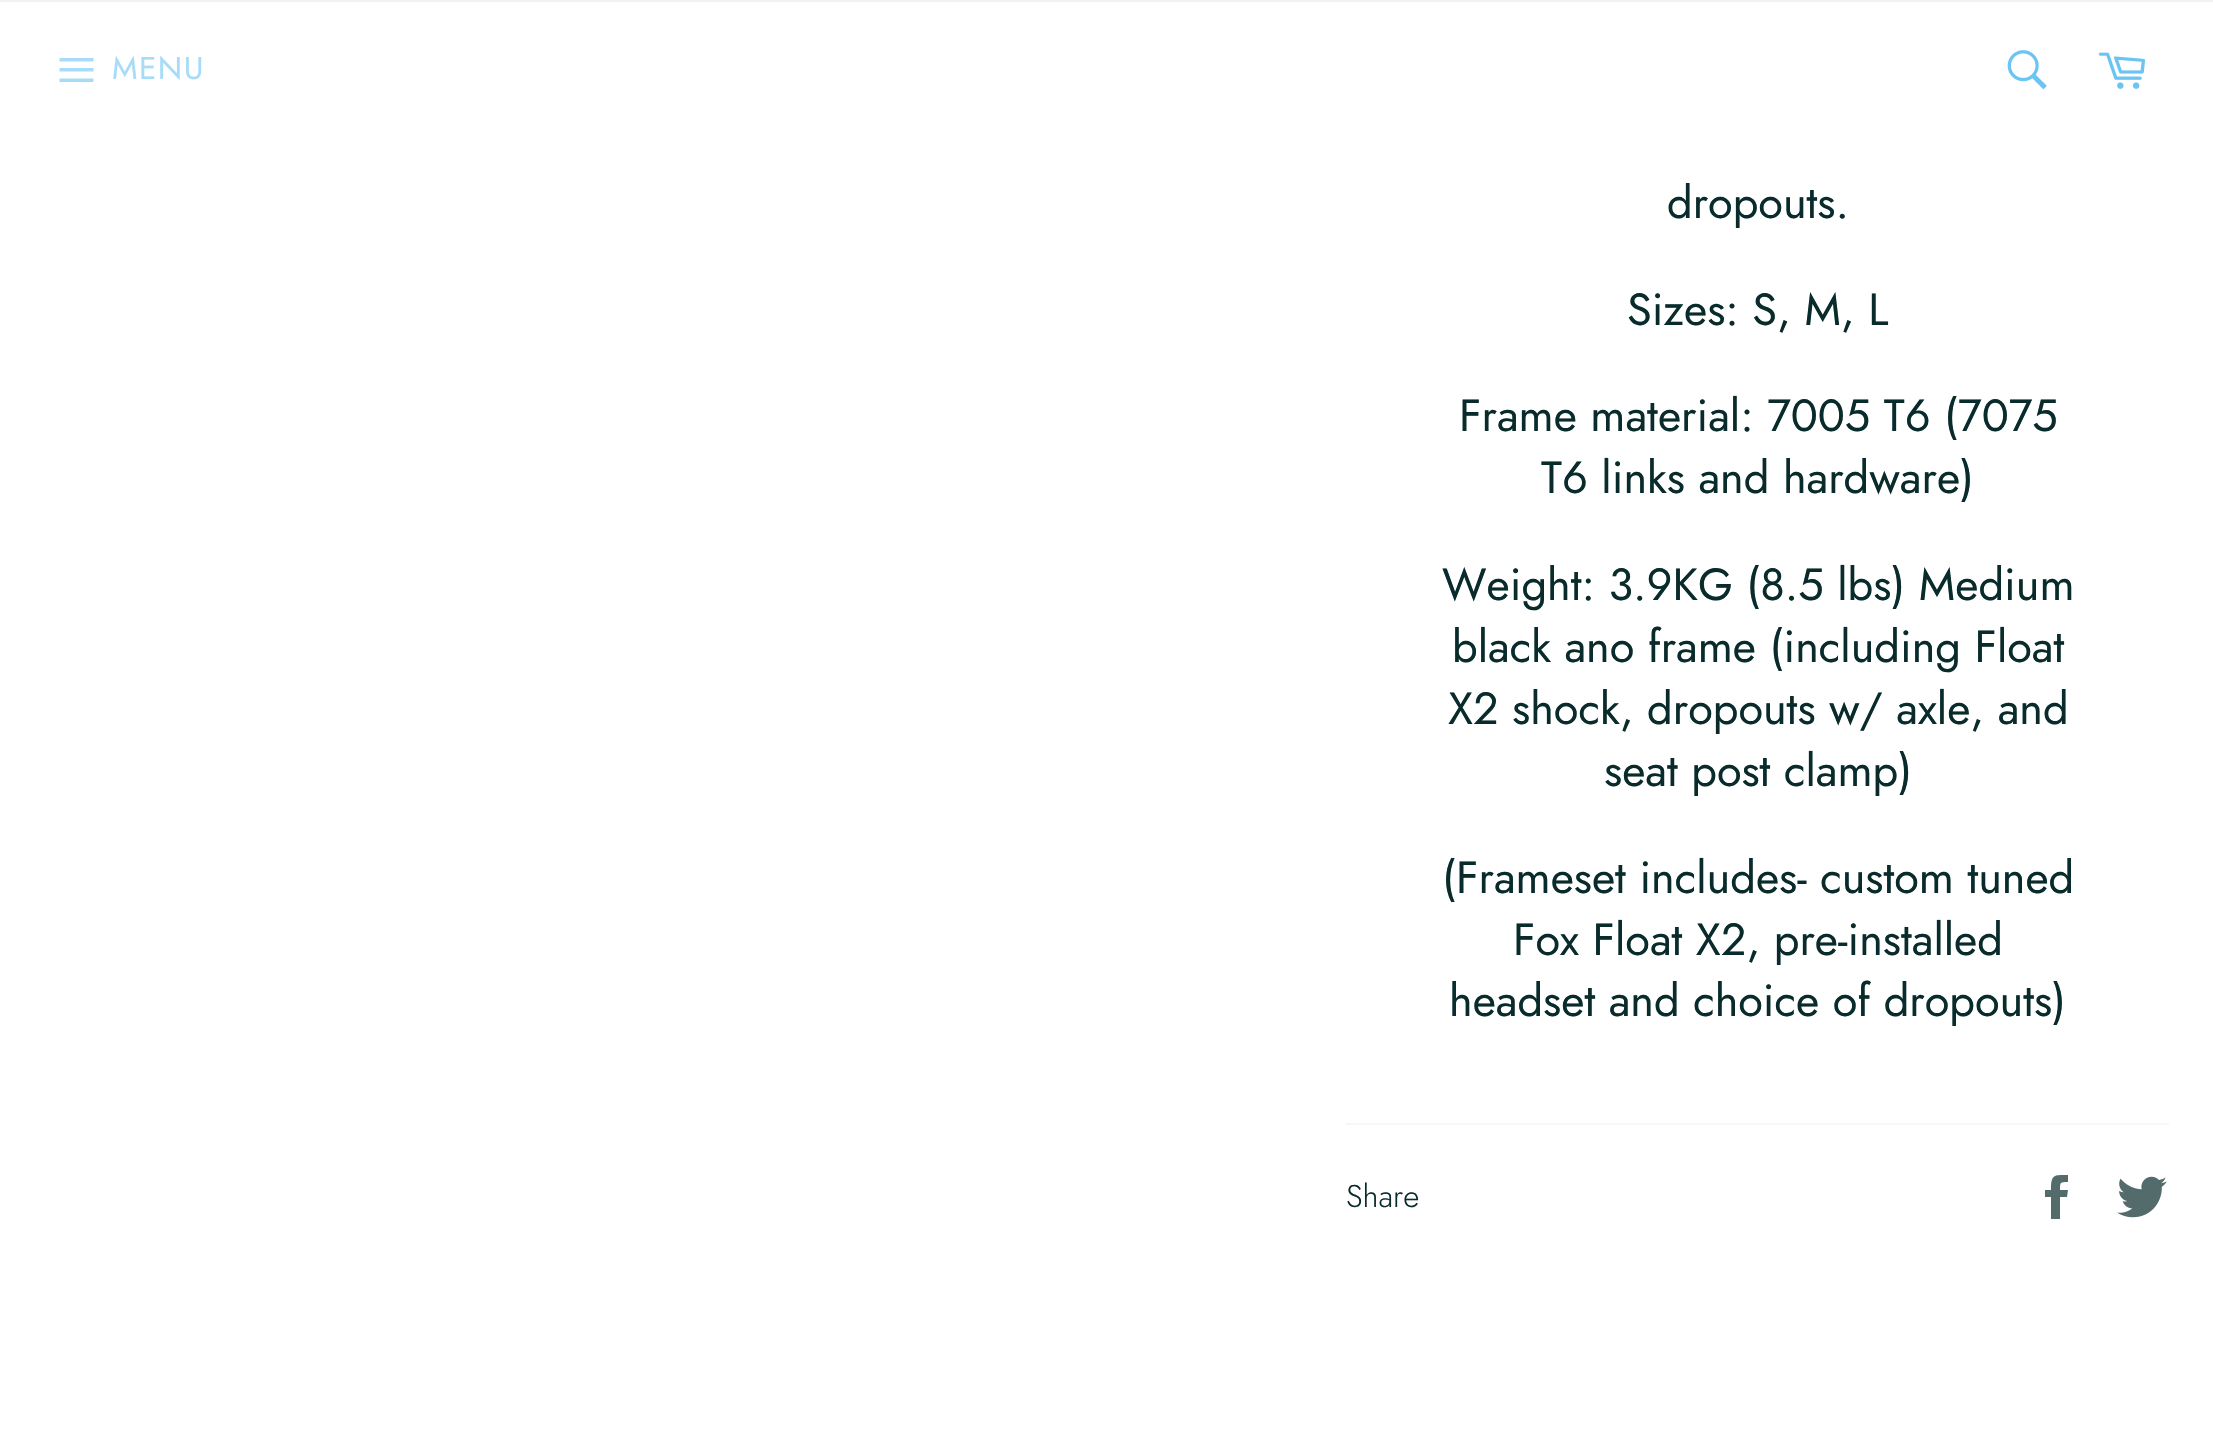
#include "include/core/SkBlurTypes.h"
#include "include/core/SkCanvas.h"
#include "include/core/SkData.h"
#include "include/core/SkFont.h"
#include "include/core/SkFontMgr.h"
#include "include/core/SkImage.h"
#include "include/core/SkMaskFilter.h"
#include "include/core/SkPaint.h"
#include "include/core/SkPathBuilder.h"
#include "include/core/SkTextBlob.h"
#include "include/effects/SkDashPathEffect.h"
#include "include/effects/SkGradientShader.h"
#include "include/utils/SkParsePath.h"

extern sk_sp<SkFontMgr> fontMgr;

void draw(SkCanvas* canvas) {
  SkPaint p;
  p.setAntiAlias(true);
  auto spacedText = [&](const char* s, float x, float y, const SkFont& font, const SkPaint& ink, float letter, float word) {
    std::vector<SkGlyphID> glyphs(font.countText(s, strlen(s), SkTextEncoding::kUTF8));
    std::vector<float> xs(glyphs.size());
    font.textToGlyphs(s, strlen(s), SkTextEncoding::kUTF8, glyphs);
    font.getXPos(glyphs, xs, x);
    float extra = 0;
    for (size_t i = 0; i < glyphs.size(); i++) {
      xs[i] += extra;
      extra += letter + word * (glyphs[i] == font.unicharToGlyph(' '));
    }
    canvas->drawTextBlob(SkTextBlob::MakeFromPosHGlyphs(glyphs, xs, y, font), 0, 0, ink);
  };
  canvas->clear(SK_ColorWHITE);
  p.setColor(SkColorSetRGB(242, 242, 242));
  canvas->drawRect(SkRect::MakeLTRB(0, 0, 2213, 2), p);
  p.setColor(SkColorSetRGB(166, 220, 248));
  canvas->drawPath(SkPathBuilder().moveTo(59.5f, 68).lineTo(93.5f, 68).lineTo(93.5f, 71.5f).lineTo(59.5f, 71.5f).close().moveTo(59.5f, 58).lineTo(93.5f, 58).lineTo(93.5f, 61.5f).lineTo(59.5f, 61.5f).close().moveTo(59.5f, 78.5f).lineTo(93.5f, 78.5f).lineTo(93.5f, 82).lineTo(59.5f, 82).close().detach(), p);
  canvas->drawImageRect(SkImages::DeferredFromEncodedData(SkData::MakeFromFileName("images/1.png")), SkRect::MakeLTRB(2007, 50, 2047, 90), SkSamplingOptions());
  canvas->drawImageRect(SkImages::DeferredFromEncodedData(SkData::MakeFromFileName("images/2.png")), SkRect::MakeLTRB(2098, 52, 2146, 89), SkSamplingOptions());
  p.setColor(SkColorSetRGB(247, 247, 247));
  canvas->drawRect(SkRect::MakeLTRB(1346, 1123, 2169, 1125), p);
  p.setColor(SkColorSetRGB(83, 107, 107));
  canvas->drawPath(SkPathBuilder().moveTo(2060, 1190).cubicTo(2060, 1182, 2060, 1182, 2068, 1182).lineTo(2068, 1175).cubicTo(2054, 1175, 2051, 1174, 2051, 1190).lineTo(2045, 1190).lineTo(2045, 1197).lineTo(2051, 1197).lineTo(2051, 1219).lineTo(2060, 1219).lineTo(2060, 1197).lineTo(2067, 1197).lineTo(2068, 1190).close().detach(), p);
  canvas->drawImageRect(SkImages::DeferredFromEncodedData(SkData::MakeFromFileName("images/3.png")), SkRect::MakeLTRB(2117, 1176, 2167, 1218), SkSamplingOptions());
  SkFont font1(fontMgr->matchFamilyStyle("Jost", SkFontStyle::Normal()), 31.5f);
  font1.setSubpixel(true);
  p.setColor(SkColorSetRGB(166, 220, 248));
  spacedText("MENU", 112, 79, font1, p, 1.5f, 0);
  SkFont font2(fontMgr->matchFamilyStyle("Jost", SkFontStyle::Normal()), 45);
  font2.setSubpixel(true);
  p.setColor(SkColorSetRGB(9, 43, 43));
  canvas->drawString("dropouts.", 1667, 218, font2, p);
  canvas->drawString("Sizes: S, M, L", 1627, 325, font2, p);
  canvas->drawString("Frame material: 7005 T6 (7075", 1459, 431, font2, p);
  canvas->drawString("T6 links and hardware)", 1541, 493, font2, p);
  canvas->drawString("Weight: 3.9KG (8.5 lbs) Medium", 1442, 600, font2, p);
  canvas->drawString("black ano frame (including Float", 1452, 662, font2, p);
  canvas->drawString("X2 shock, dropouts w/ axle, and", 1448, 724, font2, p);
  canvas->drawString("seat post clamp)", 1604, 786, font2, p);
  canvas->drawString("(Frameset includes- custom tuned", 1442, 893, font2, p);
  canvas->drawString("Fox Float X2, pre-installed", 1513, 955, font2, p);
  canvas->drawString("headset and choice of dropouts)", 1449, 1016, font2, p);
  SkFont font3(fontMgr->matchFamilyStyle("Jost", SkFontStyle(300, SkFontStyle::kNormal_Width, SkFontStyle::kUpright_Slant)), 31.5f);
  font3.setSubpixel(true);
  canvas->drawString("Share", 1346, 1207, font3, p);
}
